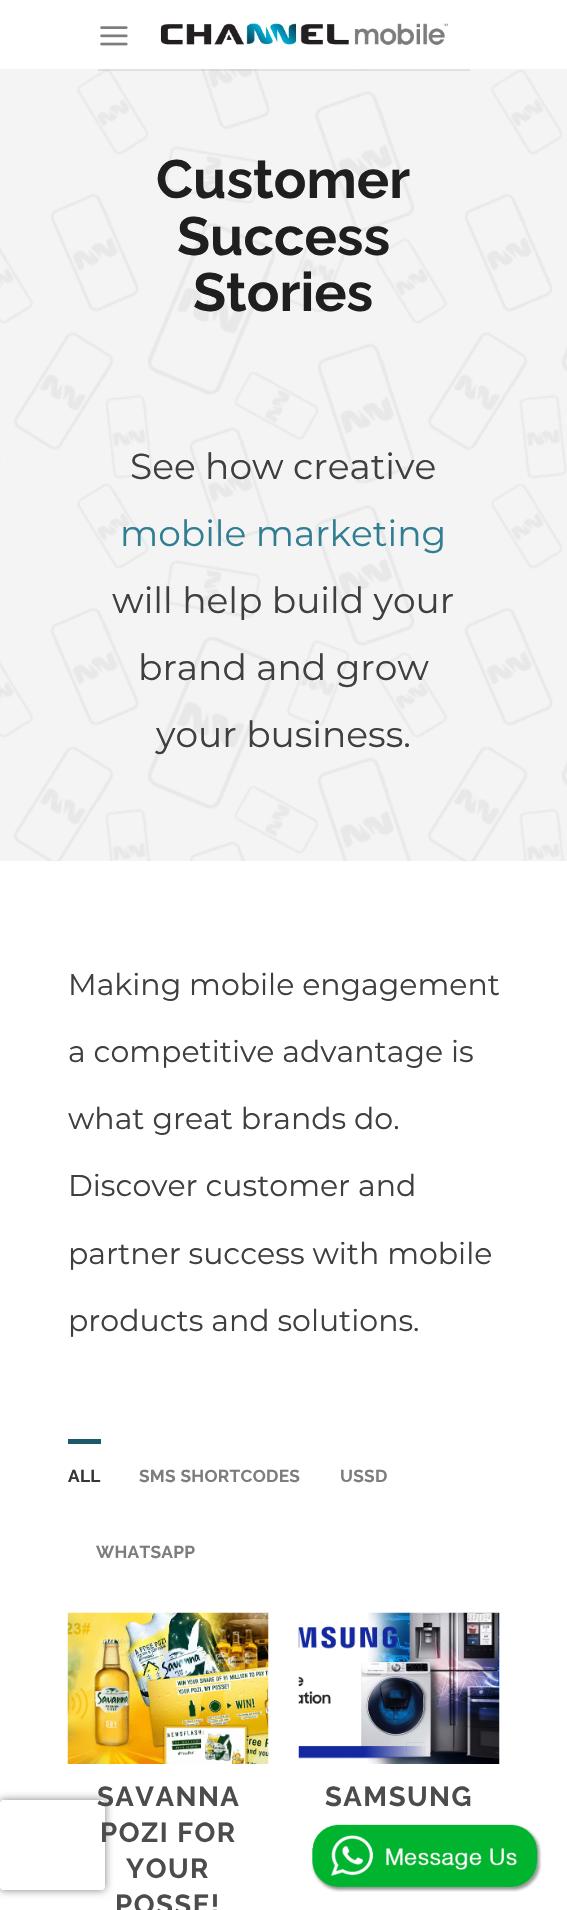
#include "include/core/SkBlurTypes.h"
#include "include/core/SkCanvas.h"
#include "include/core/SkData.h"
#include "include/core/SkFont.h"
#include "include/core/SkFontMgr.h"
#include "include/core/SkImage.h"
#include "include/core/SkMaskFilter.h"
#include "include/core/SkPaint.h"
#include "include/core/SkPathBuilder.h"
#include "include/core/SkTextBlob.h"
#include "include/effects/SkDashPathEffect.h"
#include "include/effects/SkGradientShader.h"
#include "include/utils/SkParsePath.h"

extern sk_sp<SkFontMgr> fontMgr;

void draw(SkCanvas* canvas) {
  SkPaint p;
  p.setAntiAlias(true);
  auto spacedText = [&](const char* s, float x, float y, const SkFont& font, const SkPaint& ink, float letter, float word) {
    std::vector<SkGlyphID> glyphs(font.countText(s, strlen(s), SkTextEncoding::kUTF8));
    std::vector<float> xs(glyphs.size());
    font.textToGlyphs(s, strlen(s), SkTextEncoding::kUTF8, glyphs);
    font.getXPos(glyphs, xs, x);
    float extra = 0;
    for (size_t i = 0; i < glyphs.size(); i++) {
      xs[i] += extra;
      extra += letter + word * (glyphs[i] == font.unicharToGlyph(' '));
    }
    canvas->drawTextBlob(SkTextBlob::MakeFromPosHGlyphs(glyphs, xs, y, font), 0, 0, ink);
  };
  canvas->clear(SK_ColorWHITE);
  canvas->save();
  canvas->clipPath(SkPathBuilder(SkPathFillType::kEvenOdd).moveTo(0, 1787).lineTo(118, 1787).lineTo(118, 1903).lineTo(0, 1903).close().moveTo(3, 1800).lineTo(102, 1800).cubicTo(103.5f, 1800, 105, 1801.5f, 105, 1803).lineTo(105, 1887).cubicTo(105, 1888.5f, 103.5f, 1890, 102, 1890).lineTo(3, 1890).cubicTo(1.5f, 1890, 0, 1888.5f, 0, 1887).lineTo(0, 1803).cubicTo(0, 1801.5f, 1.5f, 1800, 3, 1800).close().detach(), true);
  p.setColor(SkColorSetRGB(128, 128, 128));
  p.setMaskFilter(SkMaskFilter::MakeBlur(kNormal_SkBlurStyle, 4));
  canvas->drawRoundRect(SkRect::MakeLTRB(0, 1800, 105, 1890), 3, 3, p);
  p.setMaskFilter(nullptr);
  canvas->restore();
  canvas->drawImageRect(SkImages::DeferredFromEncodedData(SkData::MakeFromFileName("images/1.png")), SkRect::MakeLTRB(100, 26, 128, 46), SkSamplingOptions());
  canvas->drawImageRect(SkImages::DeferredFromEncodedData(SkData::MakeFromFileName("images/2.png")), SkRect::MakeLTRB(160, 23, 448, 45), SkSamplingOptions());
  canvas->drawImageRect(SkImages::DeferredFromEncodedData(SkData::MakeFromFileName("images/3.png")), SkRect::MakeLTRB(0, 69, 567, 861), SkSamplingOptions());
  p.setColor(SkColorSetARGB(26, 63, 63, 63));
  canvas->drawRect(SkRect::MakeLTRB(98, 69, 470, 71), p);
  p.setColor(SkColorSetRGB(30, 89, 105));
  canvas->drawRect(SkRect::MakeLTRB(68, 1439, 101, 1444), p);
  canvas->drawImageRect(SkImages::DeferredFromEncodedData(SkData::MakeFromFileName("images/4.png")), SkRect::MakeLTRB(67, 1612, 269, 1764), SkSamplingOptions());
  canvas->drawImageRect(SkImages::DeferredFromEncodedData(SkData::MakeFromFileName("images/5.png")), SkRect::MakeLTRB(298, 1612, 500, 1764), SkSamplingOptions());
  canvas->drawImageRect(SkImages::DeferredFromEncodedData(SkData::MakeFromFileName("images/6.png")), SkRect::MakeLTRB(311, 1824, 542, 1892), SkSamplingOptions());
  SkFont font1(fontMgr->matchFamilyStyle("Raleway", SkFontStyle(100, SkFontStyle::kNormal_Width, SkFontStyle::kUpright_Slant)), 54);
  font1.setSubpixel(true);
  p.setColor(SkColorSetRGB(31, 31, 31));
  canvas->drawString("Customer", 156, 198, font1, p);
  canvas->drawString("Success", 177, 255, font1, p);
  canvas->drawString("Stories", 193, 311, font1, p);
  SkFont font2(fontMgr->matchFamilyStyle("Montserrat", SkFontStyle(100, SkFontStyle::kNormal_Width, SkFontStyle::kUpright_Slant)), 36);
  font2.setSubpixel(true);
  p.setColor(SkColorSetRGB(63, 63, 63));
  canvas->drawString("See how creative", 130, 479, font2, p);
  p.setColor(SkColorSetRGB(49, 126, 146));
  canvas->drawString("mobile marketing", 120, 546, font2, p);
  p.setColor(SkColorSetRGB(63, 63, 63));
  canvas->drawString("will help build your", 112, 613, font2, p);
  canvas->drawString("brand and grow", 138, 680, font2, p);
  canvas->drawString("your business.", 156, 747, font2, p);
  SkFont font3(fontMgr->matchFamilyStyle("Montserrat", SkFontStyle(100, SkFontStyle::kNormal_Width, SkFontStyle::kUpright_Slant)), 30);
  font3.setSubpixel(true);
  canvas->drawString("Making mobile engagement", 68, 995, font3, p);
  canvas->drawString("a competitive advantage is", 68, 1062, font3, p);
  canvas->drawString("what great brands do.", 68, 1129, font3, p);
  canvas->drawString("Discover customer and", 68, 1196, font3, p);
  canvas->drawString("partner success with mobile", 68, 1264, font3, p);
  canvas->drawString("products and solutions.", 68, 1331, font3, p);
  SkFont font4(fontMgr->matchFamilyStyle("Raleway", SkFontStyle(100, SkFontStyle::kNormal_Width, SkFontStyle::kUpright_Slant)), 17.25f);
  font4.setSubpixel(true);
  p.setColor(SkColorSetRGB(54, 54, 54));
  spacedText("ALL", 68, 1482, font4, p, 0.3f, 0);
  p.setColor(SkColorSetRGB(125, 125, 125));
  spacedText("SMS SHORTCODES", 139, 1482, font4, p, 0.3f, 0);
  spacedText("USSD", 340, 1482, font4, p, 0.3f, 0);
  spacedText("WHATSAPP", 96, 1558, font4, p, 0.3f, 0);
  SkFont font5(fontMgr->matchFamilyStyle("Raleway", SkFontStyle(100, SkFontStyle::kNormal_Width, SkFontStyle::kUpright_Slant)), 27.5f);
  font5.setSubpixel(true);
  p.setColor(SkColorSetRGB(76, 76, 76));
  spacedText("SAVANNA", 97, 1806, font5, p, 1.5f, 0);
  spacedText("POZI FOR", 100, 1842, font5, p, 1.5f, 0);
  spacedText("YOUR", 126, 1878, font5, p, 1.5f, 0);
  spacedText("POSSE!", 115, 1914, font5, p, 1.5f, 0);
  spacedText("SAMSUNG", 325, 1806, font5, p, 1.5f, 0);
}
